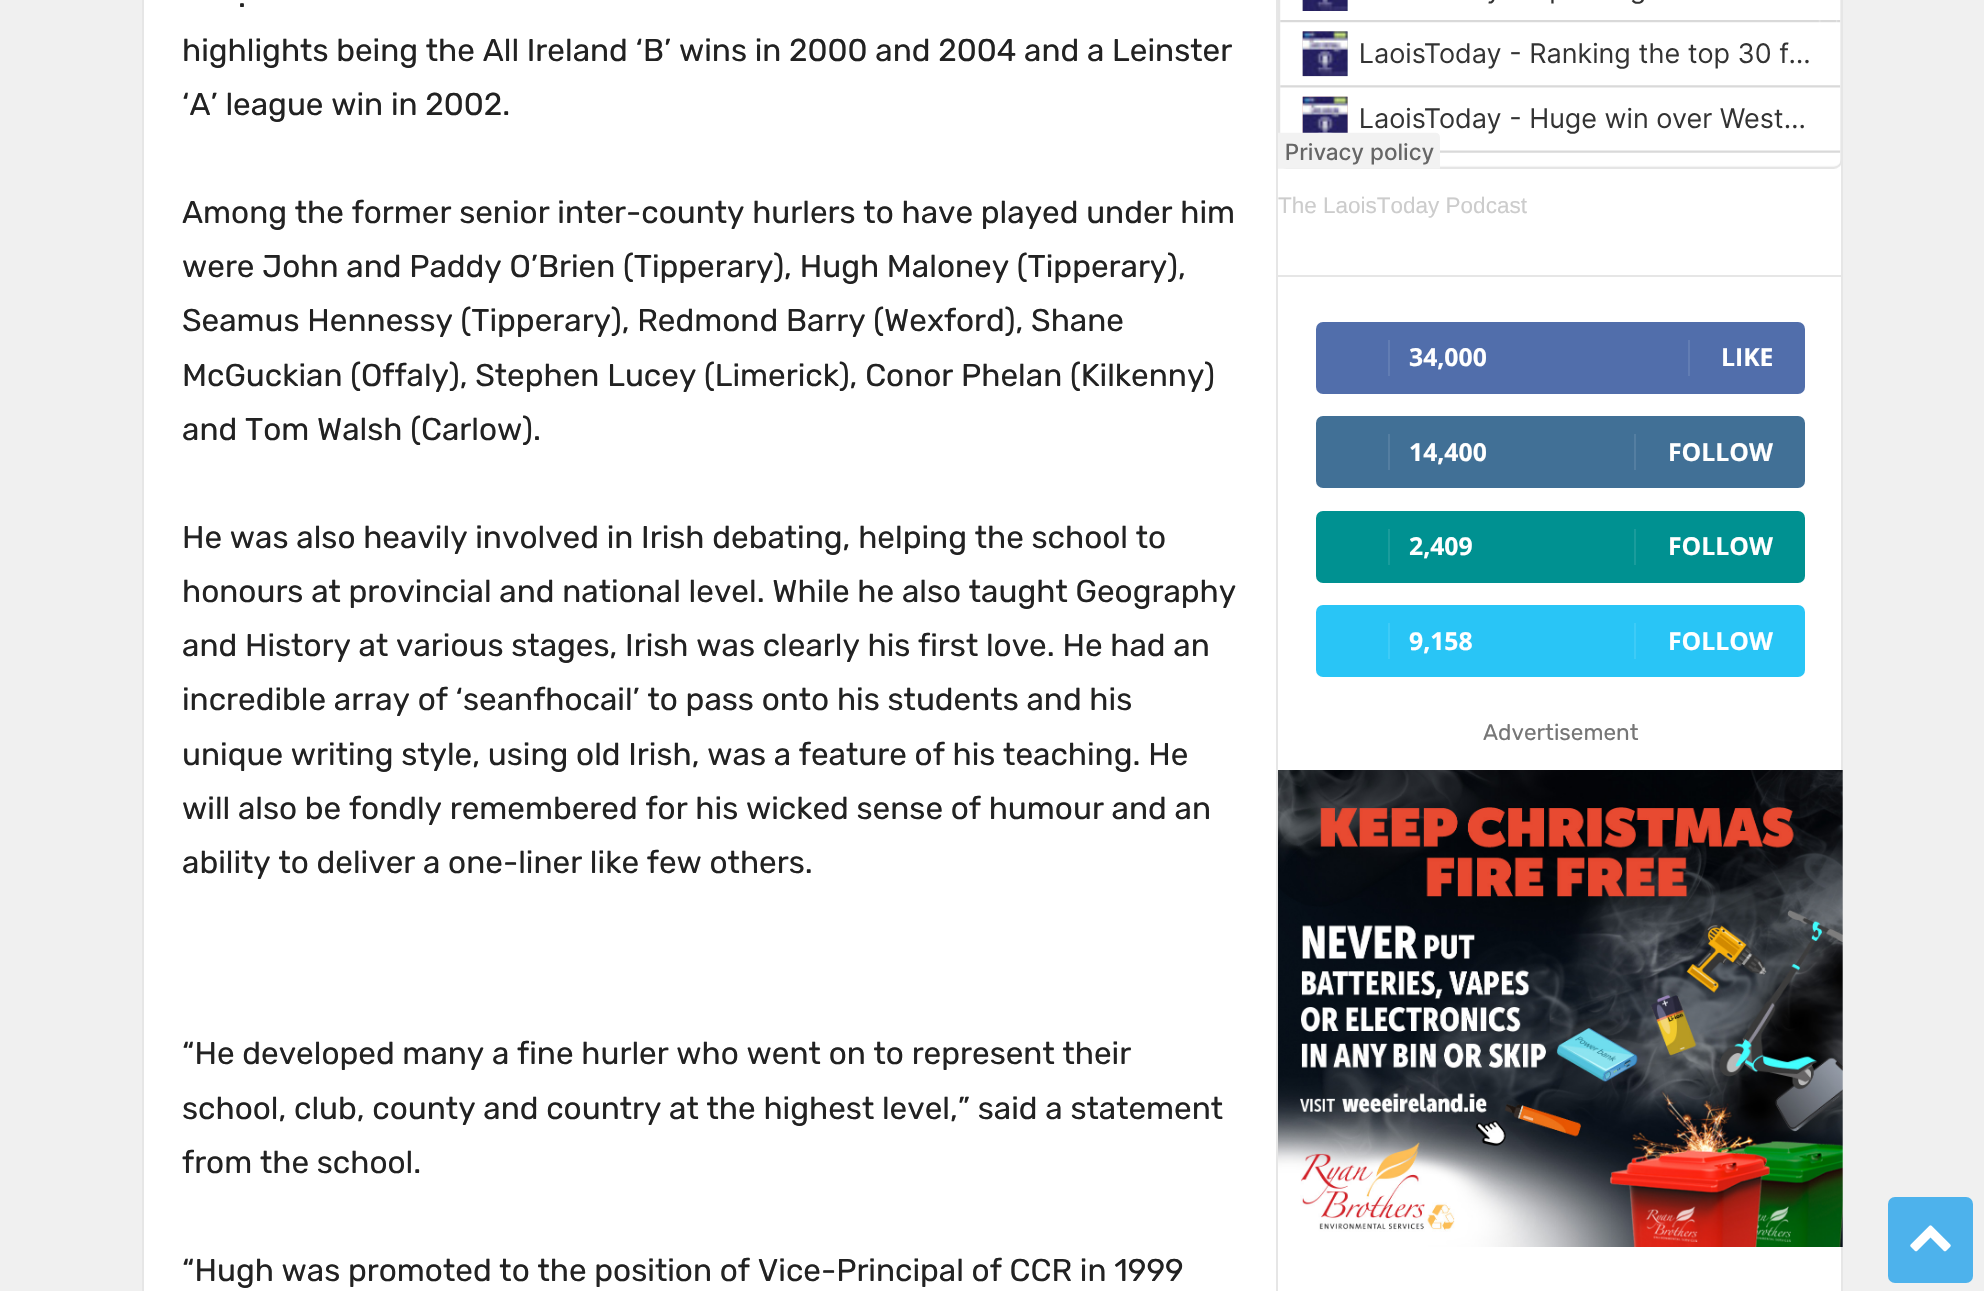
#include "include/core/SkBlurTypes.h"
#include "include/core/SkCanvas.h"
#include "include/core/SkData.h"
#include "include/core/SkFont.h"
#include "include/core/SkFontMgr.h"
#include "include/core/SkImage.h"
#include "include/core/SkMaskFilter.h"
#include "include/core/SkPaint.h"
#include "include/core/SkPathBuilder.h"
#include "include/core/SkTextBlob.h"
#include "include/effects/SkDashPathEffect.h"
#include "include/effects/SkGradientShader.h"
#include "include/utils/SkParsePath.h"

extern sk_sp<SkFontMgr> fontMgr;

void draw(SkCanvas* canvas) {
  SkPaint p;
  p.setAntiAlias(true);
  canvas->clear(SkColorSetRGB(240, 240, 240));
  p.setColor(SK_ColorWHITE);
  canvas->drawRect(SkRect::MakeLTRB(144, 0, 1841, 1291), p);
  p.setColor(SkColorSetRGB(230, 230, 230));
  canvas->drawRect(SkRect::MakeLTRB(142, 0, 144, 1291), p);
  canvas->drawRect(SkRect::MakeLTRB(1276, 0, 1278, 1291), p);
  canvas->drawImageRect(SkImages::DeferredFromEncodedData(SkData::MakeFromFileName("images/1.png")), SkRect::MakeLTRB(1278, 0, 1841, 169), SkSamplingOptions());
  canvas->drawRect(SkRect::MakeLTRB(1841, 0, 1843, 1291), p);
  canvas->drawRect(SkRect::MakeLTRB(1278, 275, 1843, 277), p);
  p.setColor(SkColorSetRGB(81, 110, 171));
  canvas->drawRoundRect(SkRect::MakeLTRB(1316, 322, 1805, 394), 7, 7, p);
  p.setColor(SkColorSetRGB(98, 125, 179));
  canvas->drawRect(SkRect::MakeLTRB(1388, 340, 1390, 376), p);
  canvas->drawRect(SkRect::MakeLTRB(1688, 340, 1690, 376), p);
  p.setColor(SkColorSetRGB(65, 112, 150));
  canvas->drawRoundRect(SkRect::MakeLTRB(1316, 416, 1805, 488), 7, 7, p);
  p.setColor(SkColorSetRGB(84, 126, 161));
  canvas->drawRect(SkRect::MakeLTRB(1388, 434, 1390, 470), p);
  canvas->drawRect(SkRect::MakeLTRB(1634, 434, 1636, 470), p);
  p.setColor(SkColorSetRGB(0, 145, 145));
  canvas->drawRoundRect(SkRect::MakeLTRB(1316, 511, 1805, 583), 7, 7, p);
  p.setColor(SkColorSetRGB(26, 156, 156));
  canvas->drawRect(SkRect::MakeLTRB(1388, 529, 1390, 565), p);
  canvas->drawRect(SkRect::MakeLTRB(1634, 529, 1636, 565), p);
  p.setColor(SkColorSetRGB(41, 197, 246));
  canvas->drawRoundRect(SkRect::MakeLTRB(1316, 605, 1805, 677), 7, 7, p);
  p.setColor(SkColorSetRGB(62, 203, 247));
  canvas->drawRect(SkRect::MakeLTRB(1388, 623, 1390, 659), p);
  canvas->drawRect(SkRect::MakeLTRB(1634, 623, 1636, 659), p);
  canvas->drawImageRect(SkImages::DeferredFromEncodedData(SkData::MakeFromFileName("images/2.png")), SkRect::MakeLTRB(1278, 770, 1843, 1247), SkSamplingOptions());
  p.setColor(SkColorSetRGB(77, 178, 236));
  canvas->drawRoundRect(SkRect::MakeLTRB(1888, 1197, 1973, 1283), 7, 7, p);
  canvas->drawImageRect(SkImages::DeferredFromEncodedData(SkData::MakeFromFileName("images/3.png")), SkRect::MakeLTRB(1910, 1225, 1951, 1252), SkSamplingOptions());
  SkFont font1(fontMgr->matchFamilyStyle("Rubik", SkFontStyle::Normal()), 31.5f);
  font1.setSubpixel(true);
  p.setColor(SkColorSetRGB(34, 34, 34));
  canvas->drawString(".", 238, 7, font1, p);
  canvas->drawString("highlights being the All Ireland ‘B’ wins in 2000 and 2004 and a Leinster", 182, 61, font1, p);
  canvas->drawString("‘A’ league win in 2002.", 182, 115, font1, p);
  canvas->drawString("Among the former senior inter-county hurlers to have played under him", 182, 223, font1, p);
  canvas->drawString("were John and Paddy O’Brien (Tipperary), Hugh Maloney (Tipperary),", 182, 277, font1, p);
  canvas->drawString("Seamus Hennessy (Tipperary), Redmond Barry (Wexford), Shane", 182, 331, font1, p);
  canvas->drawString("McGuckian (Offaly), Stephen Lucey (Limerick), Conor Phelan (Kilkenny)", 182, 386, font1, p);
  canvas->drawString("and Tom Walsh (Carlow).", 182, 440, font1, p);
  canvas->drawString("He was also heavily involved in Irish debating, helping the school to", 182, 548, font1, p);
  canvas->drawString("honours at provincial and national level. While he also taught Geography", 182, 602, font1, p);
  canvas->drawString("and History at various stages, Irish was clearly his first love. He had an", 182, 656, font1, p);
  canvas->drawString("incredible array of ‘seanfhocail’ to pass onto his students and his", 182, 710, font1, p);
  canvas->drawString("unique writing style, using old Irish, was a feature of his teaching. He", 182, 765, font1, p);
  canvas->drawString("will also be fondly remembered for his wicked sense of humour and an", 182, 819, font1, p);
  canvas->drawString("ability to deliver a one-liner like few others.", 182, 873, font1, p);
  canvas->drawString("“He developed many a fine hurler who went on to represent their", 182, 1064, font1, p);
  canvas->drawString("school, club, county and country at the highest level,” said a statement", 182, 1119, font1, p);
  canvas->drawString("from the school.", 182, 1173, font1, p);
  canvas->drawString("“Hugh was promoted to the position of Vice-Principal of CCR in 1999", 182, 1281, font1, p);
  SkFont font2(fontMgr->matchFamilyStyle("Liberation Sans", SkFontStyle::Normal()), 22.5f);
  font2.setSubpixel(true);
  p.setColor(SkColorSetRGB(204, 204, 204));
  canvas->drawString("The LaoisToday Podcast", 1278, 213, font2, p);
  SkFont font3(fontMgr->matchFamilyStyle("Open Sans", SkFontStyle::Bold()), 24.75f);
  font3.setSubpixel(true);
  p.setColor(SK_ColorWHITE);
  canvas->drawString("34,000", 1409, 366, font3, p);
  canvas->drawString("LIKE", 1721, 366, font3, p);
  canvas->drawString("14,400", 1409, 461, font3, p);
  canvas->drawString("FOLLOW", 1668, 461, font3, p);
  canvas->drawString("2,409", 1409, 555, font3, p);
  canvas->drawString("FOLLOW", 1668, 555, font3, p);
  canvas->drawString("9,158", 1409, 650, font3, p);
  canvas->drawString("FOLLOW", 1668, 650, font3, p);
  SkFont font4(fontMgr->matchFamilyStyle("Rubik", SkFontStyle::Normal()), 22.5f);
  font4.setSubpixel(true);
  p.setColor(SkColorSetRGB(118, 118, 118));
  canvas->drawString("Advertisement", 1483, 740, font4, p);
}
